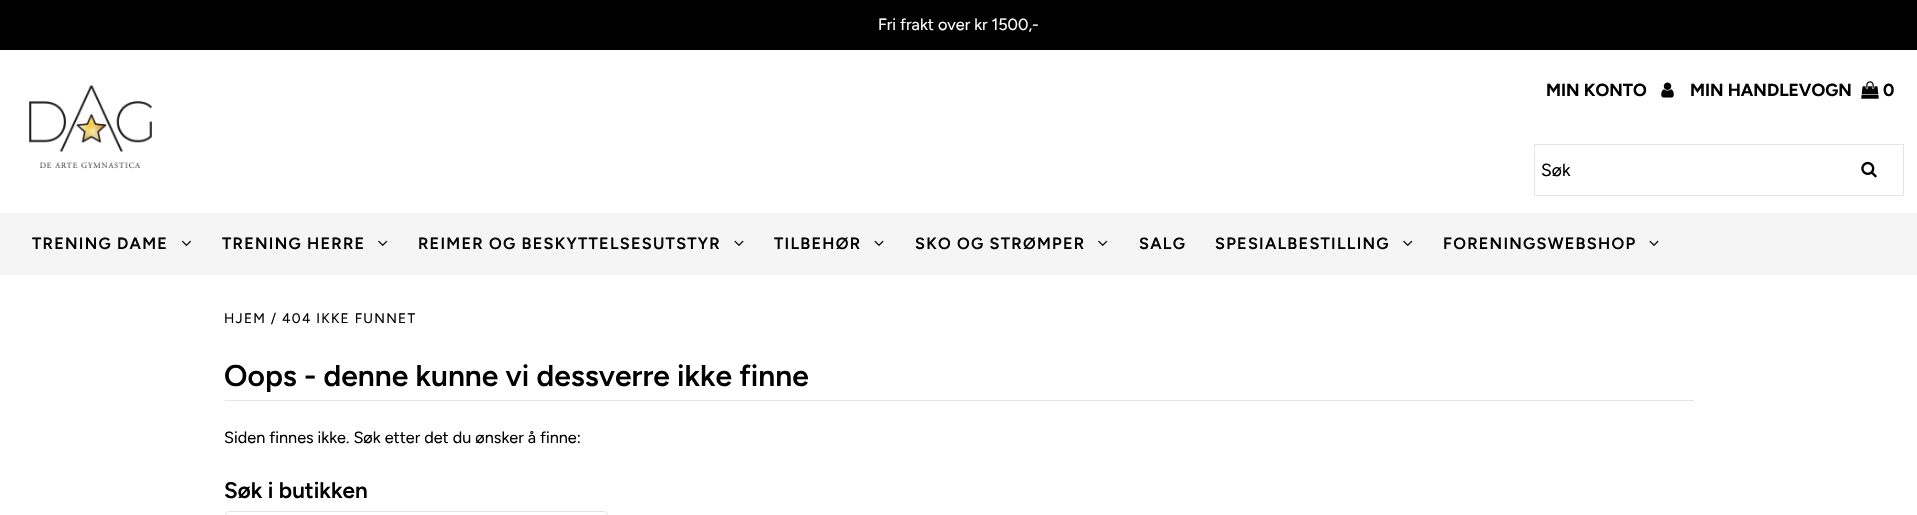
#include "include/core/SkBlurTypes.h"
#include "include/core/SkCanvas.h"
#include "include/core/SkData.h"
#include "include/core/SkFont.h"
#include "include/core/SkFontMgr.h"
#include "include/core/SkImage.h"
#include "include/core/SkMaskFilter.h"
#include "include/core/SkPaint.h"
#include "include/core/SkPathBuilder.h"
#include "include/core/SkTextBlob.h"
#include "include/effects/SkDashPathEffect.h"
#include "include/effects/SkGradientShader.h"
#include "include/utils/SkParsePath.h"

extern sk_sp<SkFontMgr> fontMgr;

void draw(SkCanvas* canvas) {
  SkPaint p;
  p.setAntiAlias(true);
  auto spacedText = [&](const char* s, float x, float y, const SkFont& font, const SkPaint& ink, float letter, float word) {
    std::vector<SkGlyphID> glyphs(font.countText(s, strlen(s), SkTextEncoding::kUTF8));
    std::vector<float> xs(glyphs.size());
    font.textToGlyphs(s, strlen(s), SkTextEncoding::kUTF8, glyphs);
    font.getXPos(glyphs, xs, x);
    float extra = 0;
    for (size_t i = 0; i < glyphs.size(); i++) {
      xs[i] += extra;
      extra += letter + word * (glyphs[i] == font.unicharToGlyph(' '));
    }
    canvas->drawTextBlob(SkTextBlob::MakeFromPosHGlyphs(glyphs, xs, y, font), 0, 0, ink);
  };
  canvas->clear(SK_ColorWHITE);
  p.setColor(SK_ColorBLACK);
  canvas->drawRect(SkRect::MakeLTRB(0, 0, 1917, 50), p);
  canvas->drawImageRect(SkImages::DeferredFromEncodedData(SkData::MakeFromFileName("images/1.png")), SkRect::MakeLTRB(29, 85, 152, 169), SkSamplingOptions());
  canvas->drawImageRect(SkImages::DeferredFromEncodedData(SkData::MakeFromFileName("images/2.png")), SkRect::MakeLTRB(1661, 82, 1674, 98), SkSamplingOptions());
  canvas->drawImageRect(SkImages::DeferredFromEncodedData(SkData::MakeFromFileName("images/3.png")), SkRect::MakeLTRB(1861, 81, 1879, 99), SkSamplingOptions());
  p.setStyle(SkPaint::kStroke_Style);
  p.setStrokeWidth(1);
  p.setColor(SkColorSetRGB(229, 229, 229));
  canvas->drawRect(SkRect::MakeLTRB(1534.5f, 144.5f, 1903.5f, 195.5f), p);
  canvas->drawImageRect(SkImages::DeferredFromEncodedData(SkData::MakeFromFileName("images/4.png")), SkRect::MakeLTRB(1861, 161, 1877, 178), SkSamplingOptions());
  p.setStyle(SkPaint::kFill_Style);
  p.setColor(SkColorSetRGB(245, 245, 245));
  canvas->drawRect(SkRect::MakeLTRB(0, 213, 1917, 275), p);
  canvas->drawImageRect(SkImages::DeferredFromEncodedData(SkData::MakeFromFileName("images/5.png")), SkRect::MakeLTRB(182, 240, 191, 246), SkSamplingOptions());
  canvas->drawImageRect(SkImages::DeferredFromEncodedData(SkData::MakeFromFileName("images/6.png")), SkRect::MakeLTRB(378, 240, 388, 246), SkSamplingOptions());
  canvas->drawImageRect(SkImages::DeferredFromEncodedData(SkData::MakeFromFileName("images/7.png")), SkRect::MakeLTRB(734, 240, 744, 246), SkSamplingOptions());
  canvas->drawImageRect(SkImages::DeferredFromEncodedData(SkData::MakeFromFileName("images/7.png")), SkRect::MakeLTRB(874, 240, 884, 246), SkSamplingOptions());
  canvas->drawImageRect(SkImages::DeferredFromEncodedData(SkData::MakeFromFileName("images/6.png")), SkRect::MakeLTRB(1098, 240, 1108, 246), SkSamplingOptions());
  canvas->drawImageRect(SkImages::DeferredFromEncodedData(SkData::MakeFromFileName("images/6.png")), SkRect::MakeLTRB(1403, 240, 1413, 246), SkSamplingOptions());
  canvas->drawImageRect(SkImages::DeferredFromEncodedData(SkData::MakeFromFileName("images/7.png")), SkRect::MakeLTRB(1649, 240, 1659, 246), SkSamplingOptions());
  p.setColor(SkColorSetRGB(229, 229, 229));
  canvas->drawRect(SkRect::MakeLTRB(225, 400, 1694, 401), p);
  p.setStyle(SkPaint::kStroke_Style);
  canvas->drawRoundRect(SkRect::MakeLTRB(225.5f, 511.5f, 607.5f, 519.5f), 3.5f, 3.5f, p);
  SkFont font1(fontMgr->matchFamilyStyle("Figtree", SkFontStyle::Normal()), 16.25f);
  font1.setSubpixel(true);
  p.setStyle(SkPaint::kFill_Style);
  p.setColor(SK_ColorWHITE);
  canvas->drawString("Fri frakt over kr 1500,-", 878, 30, font1, p);
  SkFont font2(fontMgr->matchFamilyStyle("Figtree", SkFontStyle::Bold()), 17.5f);
  font2.setSubpixel(true);
  p.setColor(SK_ColorBLACK);
  canvas->drawString("MIN KONTO", 1546, 96, font2, p);
  canvas->drawString("MIN HANDLEVOGN", 1690, 96, font2, p);
  canvas->drawString("0", 1883, 96, font2, p);
  SkFont font3(fontMgr->matchFamilyStyle("Figtree", SkFontStyle::Normal()), 17.5f);
  font3.setSubpixel(true);
  canvas->drawString("Søk", 1541, 176, font3, p);
  SkFont font4(fontMgr->matchFamilyStyle("Figtree", SkFontStyle(600, SkFontStyle::kNormal_Width, SkFontStyle::kUpright_Slant)), 16.25f);
  font4.setSubpixel(true);
  spacedText("TRENING DAME", 32, 249, font4, p, 1.25f, 0);
  spacedText("TRENING HERRE", 222, 249, font4, p, 1.25f, 0);
  spacedText("REIMER OG BESKYTTELSESUTSTYR", 418, 249, font4, p, 1.25f, 0);
  spacedText("TILBEHØR", 774, 249, font4, p, 1.25f, 0);
  spacedText("SKO OG STRØMPER", 915, 249, font4, p, 1.25f, 0);
  spacedText("SALG", 1139, 249, font4, p, 1.25f, 0);
  spacedText("SPESIALBESTILLING", 1215, 249, font4, p, 1.25f, 0);
  spacedText("FORENINGSWEBSHOP", 1443, 249, font4, p, 1.25f, 0);
  SkFont font5(fontMgr->matchFamilyStyle("Figtree", SkFontStyle::Normal()), 13.75f);
  font5.setSubpixel(true);
  spacedText("HJEM / 404 IKKE FUNNET", 224, 323, font5, p, 1.25f, 0);
  SkFont font6(fontMgr->matchFamilyStyle("Figtree", SkFontStyle(600, SkFontStyle::kNormal_Width, SkFontStyle::kUpright_Slant)), 30);
  font6.setSubpixel(true);
  canvas->drawString("Oops - denne kunne vi dessverre ikke finne", 224, 386, font6, p);
  canvas->drawString("Siden finnes ikke. Søk etter det du ønsker å finne:", 224, 443, font1, p);
  SkFont font7(fontMgr->matchFamilyStyle("Figtree", SkFontStyle(600, SkFontStyle::kNormal_Width, SkFontStyle::kUpright_Slant)), 22.5f);
  font7.setSubpixel(true);
  canvas->drawString("Søk i butikken", 224, 498, font7, p);
}
